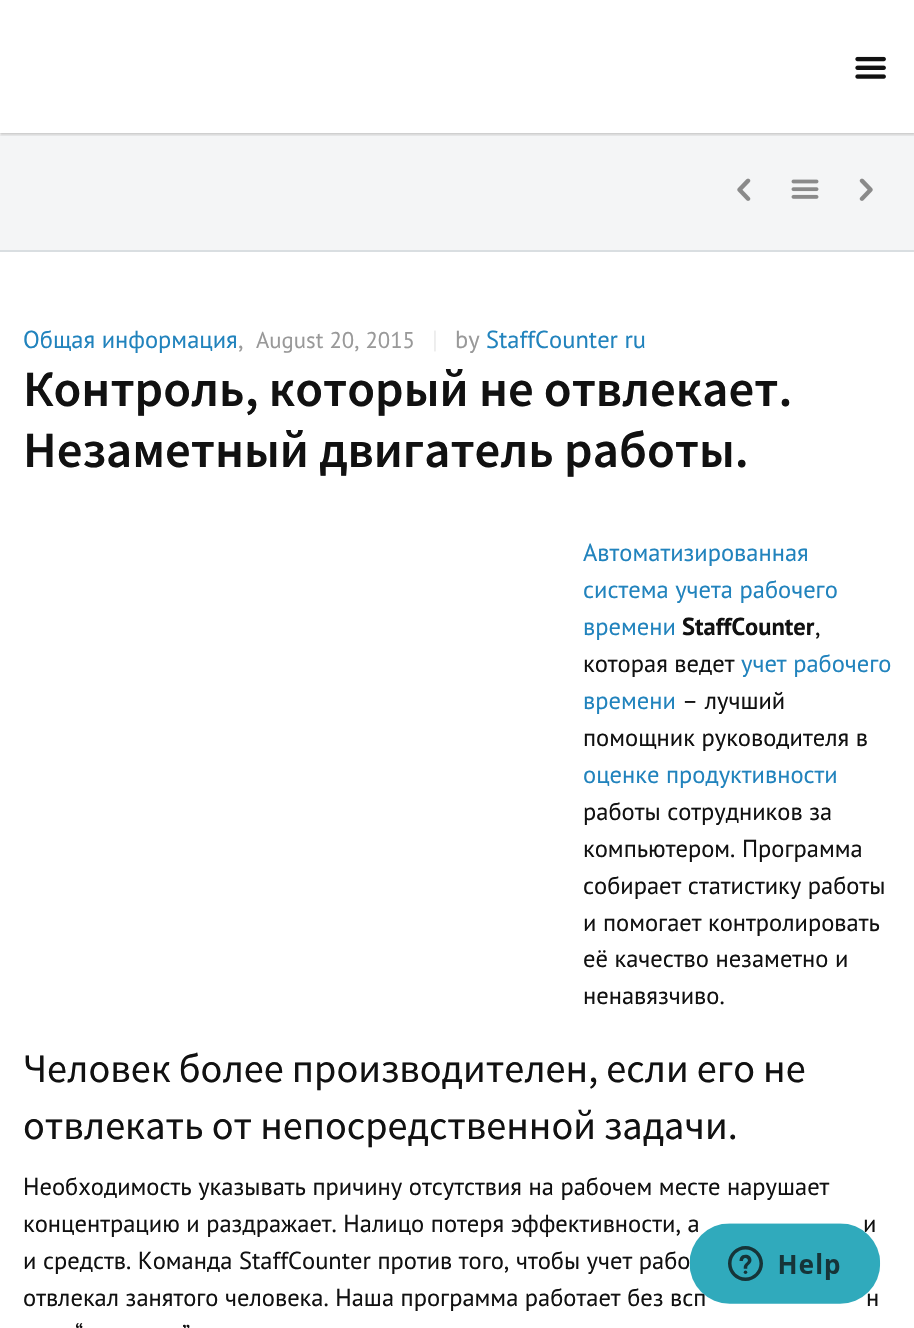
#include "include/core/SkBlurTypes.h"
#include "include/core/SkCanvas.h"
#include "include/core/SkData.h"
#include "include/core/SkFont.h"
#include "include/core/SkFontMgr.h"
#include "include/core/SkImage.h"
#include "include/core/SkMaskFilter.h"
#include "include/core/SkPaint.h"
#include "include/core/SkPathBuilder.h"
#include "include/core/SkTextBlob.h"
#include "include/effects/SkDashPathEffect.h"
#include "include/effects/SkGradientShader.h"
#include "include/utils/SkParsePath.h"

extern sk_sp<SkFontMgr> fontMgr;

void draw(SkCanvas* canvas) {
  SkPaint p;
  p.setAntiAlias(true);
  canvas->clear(SK_ColorWHITE);
  p.setColor(SkColorSetRGB(244, 245, 246));
  canvas->drawRect(SkRect::MakeLTRB(0, 135, 914, 250), p);
  canvas->save();
  canvas->clipRect(SkRect::MakeLTRB(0, 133, 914, 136));
  p.setColor(SkColorSetARGB(51, 0, 0, 0));
  p.setMaskFilter(SkMaskFilter::MakeBlur(kNormal_SkBlurStyle, 1));
  canvas->drawRect(SkRect::MakeLTRB(0, 2, 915, 135), p);
  p.setMaskFilter(nullptr);
  canvas->restore();
  canvas->drawImageRect(SkImages::DeferredFromEncodedData(SkData::MakeFromFileName("images/1.png")), SkRect::MakeLTRB(855, 56, 886, 79), SkSamplingOptions());
  p.setColor(SkColorSetRGB(217, 222, 225));
  canvas->drawRect(SkRect::MakeLTRB(0, 250, 914, 252), p);
  canvas->drawImageRect(SkImages::DeferredFromEncodedData(SkData::MakeFromFileName("images/2.png")), SkRect::MakeLTRB(737, 178, 751, 201), SkSamplingOptions());
  canvas->drawImageRect(SkImages::DeferredFromEncodedData(SkData::MakeFromFileName("images/3.png")), SkRect::MakeLTRB(791, 179, 819, 199), SkSamplingOptions());
  canvas->drawImageRect(SkImages::DeferredFromEncodedData(SkData::MakeFromFileName("images/4.png")), SkRect::MakeLTRB(859, 178, 873, 201), SkSamplingOptions());
  SkFont font1(fontMgr->matchFamilyStyle("PT Sans", SkFontStyle::Normal()), 24.5f);
  font1.setSubpixel(true);
  p.setColor(SkColorSetRGB(33, 131, 189));
  canvas->drawString("Общая информация", 23, 348, font1, p);
  p.setColor(SkColorSetRGB(153, 153, 153));
  canvas->drawString(",", 238, 348, font1, p);
  SkFont font2(fontMgr->matchFamilyStyle("PT Sans", SkFontStyle::Normal()), 22.75f);
  font2.setSubpixel(true);
  canvas->drawString("August 20, 2015", 256, 348, font2, p);
  p.setColor(SkColorSetRGB(236, 236, 236));
  canvas->drawString("|", 432, 348, font1, p);
  p.setColor(SkColorSetRGB(153, 153, 153));
  canvas->drawString("by", 455, 348, font1, p);
  p.setColor(SkColorSetRGB(33, 131, 189));
  canvas->drawString("StaffCounter ru", 486, 348, font1, p);
  SkFont font3(fontMgr->matchFamilyStyle("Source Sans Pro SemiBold", SkFontStyle(600, SkFontStyle::kNormal_Width, SkFontStyle::kUpright_Slant)), 50.75f);
  font3.setSubpixel(true);
  p.setColor(SkColorSetRGB(17, 17, 17));
  canvas->drawString("Контроль, который не отвлекает.", 23, 406, font3, p);
  canvas->drawString("Незаметный двигатель работы.", 23, 467, font3, p);
  p.setColor(SkColorSetRGB(33, 131, 189));
  canvas->drawString("Автоматизированная", 583, 561, font1, p);
  canvas->drawString("система учета рабочего", 583, 598, font1, p);
  canvas->drawString("времени", 583, 635, font1, p);
  SkFont font4(fontMgr->matchFamilyStyle("PT Sans", SkFontStyle::Bold()), 24.5f);
  font4.setSubpixel(true);
  p.setColor(SkColorSetRGB(17, 17, 17));
  canvas->drawString("StaffCounter", 682, 635, font4, p);
  canvas->drawString(",", 815, 635, font1, p);
  canvas->drawString("которая ведет", 583, 672, font1, p);
  p.setColor(SkColorSetRGB(33, 131, 189));
  canvas->drawString("учет рабочего", 741, 672, font1, p);
  canvas->drawString("времени", 583, 709, font1, p);
  p.setColor(SkColorSetRGB(17, 17, 17));
  canvas->drawString("– лучший", 682, 709, font1, p);
  canvas->drawString("помощник руководителя в", 583, 746, font1, p);
  p.setColor(SkColorSetRGB(33, 131, 189));
  canvas->drawString("оценке продуктивности", 583, 783, font1, p);
  p.setColor(SkColorSetRGB(17, 17, 17));
  canvas->drawString("работы сотрудников за", 583, 820, font1, p);
  canvas->drawString("компьютером. Программа", 583, 857, font1, p);
  canvas->drawString("собирает статистику работы", 583, 894, font1, p);
  canvas->drawString("и помогает контролировать", 583, 931, font1, p);
  canvas->drawString("её качество незаметно и", 583, 967, font1, p);
  canvas->drawString("ненавязчиво.", 583, 1004, font1, p);
  SkFont font5(fontMgr->matchFamilyStyle("Source Sans Pro", SkFontStyle::Normal()), 40.25f);
  font5.setSubpixel(true);
  canvas->drawString("Человек более производителен, если его не", 23, 1082, font5, p);
  canvas->drawString("отвлекать от непосредственной задачи.", 23, 1139, font5, p);
  canvas->drawString("Необходимость указывать причину отсутствия на рабочем месте нарушает", 23, 1195, font1, p);
  canvas->drawString("концентрацию и раздражает. Налицо потеря эффективности, а", 23, 1232, font1, p);
  canvas->drawString("и", 863, 1232, font1, p);
  canvas->drawString("и средств. Команда StaffCounter против того, чтобы учет рабо", 23, 1269, font1, p);
  canvas->drawString("отвлекал занятого человека. Наша программа работает без всп", 23, 1306, font1, p);
  canvas->drawString("н", 866, 1306, font1, p);
  canvas->drawString("“", 75, 1342, font1, p);
  canvas->drawString("”", 182, 1342, font1, p);
  canvas->drawImageRect(SkImages::DeferredFromEncodedData(SkData::MakeFromFileName("images/5.png")), SkRect::MakeLTRB(689, 1223, 881, 1304), SkSamplingOptions());
}
